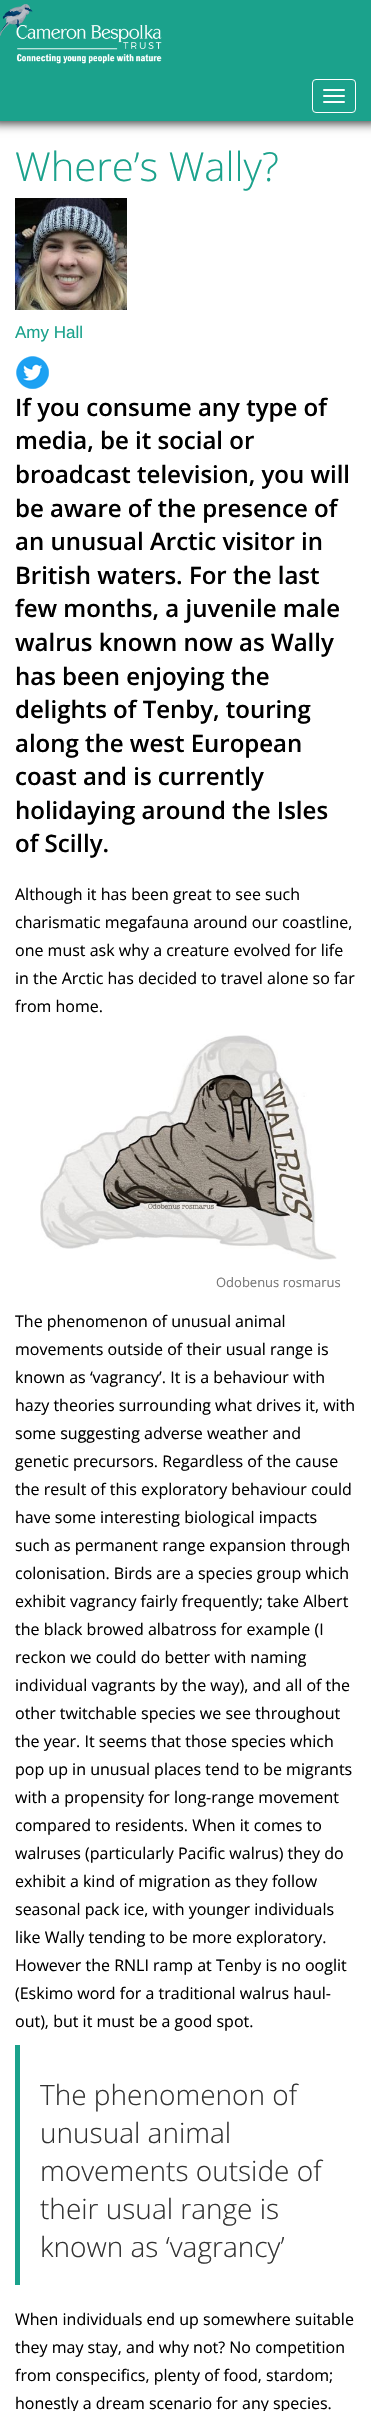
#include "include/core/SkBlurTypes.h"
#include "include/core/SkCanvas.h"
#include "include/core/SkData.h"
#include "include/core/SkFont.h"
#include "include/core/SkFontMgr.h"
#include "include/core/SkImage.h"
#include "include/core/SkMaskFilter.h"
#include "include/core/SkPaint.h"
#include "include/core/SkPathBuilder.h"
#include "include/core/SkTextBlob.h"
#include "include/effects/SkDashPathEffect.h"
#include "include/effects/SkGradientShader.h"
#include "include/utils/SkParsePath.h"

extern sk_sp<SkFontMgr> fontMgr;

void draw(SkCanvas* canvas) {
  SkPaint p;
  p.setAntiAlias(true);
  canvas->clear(SK_ColorWHITE);
  p.setColor(SkColorSetRGB(51, 51, 51));
  p.setMaskFilter(SkMaskFilter::MakeBlur(kNormal_SkBlurStyle, 5));
  canvas->drawRect(SkRect::MakeLTRB(-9, 14, 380, 123), p);
  p.setMaskFilter(nullptr);
  p.setColor(SkColorSetRGB(27, 162, 140));
  canvas->drawRect(SkRect::MakeLTRB(0, 0, 371, 121), p);
  canvas->drawImageRect(SkImages::DeferredFromEncodedData(SkData::MakeFromFileName("images/1.png")), SkRect::MakeLTRB(0, 4, 162, 64), SkSamplingOptions());
  p.setStyle(SkPaint::kStroke_Style);
  p.setStrokeWidth(1);
  p.setColor(SK_ColorWHITE);
  canvas->drawRoundRect(SkRect::MakeLTRB(312.5f, 79.5f, 355.5f, 112.5f), 3.5f, 3.5f, p);
  p.setStyle(SkPaint::kFill_Style);
  canvas->drawRoundRect(SkRect::MakeLTRB(323, 89, 345, 91), 1, 1, p);
  canvas->drawRoundRect(SkRect::MakeLTRB(323, 95, 345, 97), 1, 1, p);
  canvas->drawRoundRect(SkRect::MakeLTRB(323, 101, 345, 103), 1, 1, p);
  canvas->drawImageRect(SkImages::DeferredFromEncodedData(SkData::MakeFromFileName("images/2.png")), SkRect::MakeLTRB(15, 198, 127, 310), SkSamplingOptions());
  canvas->drawImageRect(SkImages::DeferredFromEncodedData(SkData::MakeFromFileName("images/3.png")), SkRect::MakeLTRB(16, 356, 49, 389), SkSamplingOptions());
  canvas->drawImageRect(SkImages::DeferredFromEncodedData(SkData::MakeFromFileName("images/4.png")), SkRect::MakeLTRB(40, 1035, 337, 1260), SkSamplingOptions());
  p.setColor(SkColorSetRGB(27, 162, 140));
  canvas->drawRect(SkRect::MakeLTRB(15, 2045, 20, 2285), p);
  SkFont font1(fontMgr->matchFamilyStyle("Open Sans", SkFontStyle(300, SkFontStyle::kNormal_Width, SkFontStyle::kUpright_Slant)), 40);
  font1.setSubpixel(true);
  canvas->drawString("Where’s Wally?", 15, 181, font1, p);
  SkFont font2(fontMgr->matchFamilyStyle("Liberation Sans", SkFontStyle::Normal()), 17);
  font2.setSubpixel(true);
  canvas->drawString("Amy Hall", 15, 338, font2, p);
  SkFont font3(fontMgr->matchFamilyStyle("Open Sans", SkFontStyle(600, SkFontStyle::kNormal_Width, SkFontStyle::kUpright_Slant)), 24);
  font3.setSubpixel(true);
  p.setColor(SK_ColorBLACK);
  canvas->drawString("If you consume any type of", 15, 416, font3, p);
  canvas->drawString("media, be it social or", 15, 449, font3, p);
  canvas->drawString("broadcast television, you will", 15, 483, font3, p);
  canvas->drawString("be aware of the presence of", 15, 517, font3, p);
  canvas->drawString("an unusual Arctic visitor in", 15, 550, font3, p);
  canvas->drawString("British waters. For the last", 15, 584, font3, p);
  canvas->drawString("few months, a juvenile male", 15, 617, font3, p);
  canvas->drawString("walrus known now as Wally", 15, 651, font3, p);
  canvas->drawString("has been enjoying the", 15, 685, font3, p);
  canvas->drawString("delights of Tenby, touring", 15, 718, font3, p);
  canvas->drawString("along the west European", 15, 752, font3, p);
  canvas->drawString("coast and is currently", 15, 785, font3, p);
  canvas->drawString("holidaying around the Isles", 15, 819, font3, p);
  canvas->drawString("of Scilly.", 15, 852, font3, p);
  SkFont font4(fontMgr->matchFamilyStyle("Open Sans", SkFontStyle::Normal()), 16);
  font4.setSubpixel(true);
  canvas->drawString("Although it has been great to see such", 15, 900, font4, p);
  canvas->drawString("charismatic megafauna around our coastline,", 15, 928, font4, p);
  canvas->drawString("one must ask why a creature evolved for life", 15, 956, font4, p);
  canvas->drawString("in the Arctic has decided to travel alone so far", 15, 984, font4, p);
  canvas->drawString("from home.", 15, 1012, font4, p);
  SkFont font5(fontMgr->matchFamilyStyle("Open Sans", SkFontStyle::Normal()), 13);
  font5.setSubpixel(true);
  p.setColor(SkColorSetRGB(119, 119, 119));
  canvas->drawString("Odobenus rosmarus", 216, 1287, font5, p);
  p.setColor(SK_ColorBLACK);
  canvas->drawString("The phenomenon of unusual animal", 15, 1327, font4, p);
  canvas->drawString("movements outside of their usual range is", 15, 1355, font4, p);
  canvas->drawString("known as ‘vagrancy’. It is a behaviour with", 15, 1383, font4, p);
  canvas->drawString("hazy theories surrounding what drives it, with", 15, 1411, font4, p);
  canvas->drawString("some suggesting adverse weather and", 15, 1439, font4, p);
  canvas->drawString("genetic precursors. Regardless of the cause", 15, 1467, font4, p);
  canvas->drawString("the result of this exploratory behaviour could", 15, 1495, font4, p);
  canvas->drawString("have some interesting biological impacts", 15, 1523, font4, p);
  canvas->drawString("such as permanent range expansion through", 15, 1551, font4, p);
  canvas->drawString("colonisation. Birds are a species group which", 15, 1579, font4, p);
  canvas->drawString("exhibit vagrancy fairly frequently; take Albert", 15, 1607, font4, p);
  canvas->drawString("the black browed albatross for example (I", 15, 1635, font4, p);
  canvas->drawString("reckon we could do better with naming", 15, 1663, font4, p);
  canvas->drawString("individual vagrants by the way), and all of the", 15, 1691, font4, p);
  canvas->drawString("other twitchable species we see throughout", 15, 1719, font4, p);
  canvas->drawString("the year. It seems that those species which", 15, 1747, font4, p);
  canvas->drawString("pop up in unusual places tend to be migrants", 15, 1775, font4, p);
  canvas->drawString("with a propensity for long-range movement", 15, 1803, font4, p);
  canvas->drawString("compared to residents. When it comes to", 15, 1831, font4, p);
  canvas->drawString("walruses (particularly Pacific walrus) they do", 15, 1859, font4, p);
  canvas->drawString("exhibit a kind of migration as they follow", 15, 1887, font4, p);
  canvas->drawString("seasonal pack ice, with younger individuals", 15, 1915, font4, p);
  canvas->drawString("like Wally tending to be more exploratory.", 15, 1943, font4, p);
  canvas->drawString("However the RNLI ramp at Tenby is no ooglit", 15, 1971, font4, p);
  canvas->drawString("(Eskimo word for a traditional walrus haul-", 15, 1999, font4, p);
  canvas->drawString("out), but it must be a good spot.", 15, 2027, font4, p);
  SkFont font6(fontMgr->matchFamilyStyle("Open Sans", SkFontStyle(300, SkFontStyle::kNormal_Width, SkFontStyle::kUpright_Slant)), 28);
  font6.setSubpixel(true);
  p.setColor(SkColorSetRGB(51, 51, 51));
  canvas->drawString("The phenomenon of", 40, 2105, font6, p);
  canvas->drawString("unusual animal", 40, 2143, font6, p);
  canvas->drawString("movements outside of", 40, 2181, font6, p);
  canvas->drawString("their usual range is", 40, 2219, font6, p);
  canvas->drawString("known as ‘vagrancy’", 40, 2257, font6, p);
  p.setColor(SK_ColorBLACK);
  canvas->drawString("When individuals end up somewhere suitable", 15, 2325, font4, p);
  canvas->drawString("they may stay, and why not? No competition", 15, 2353, font4, p);
  canvas->drawString("from conspecifics, plenty of food, stardom;", 15, 2381, font4, p);
  canvas->drawString("honestly a dream scenario for any species.", 15, 2409, font4, p);
}
